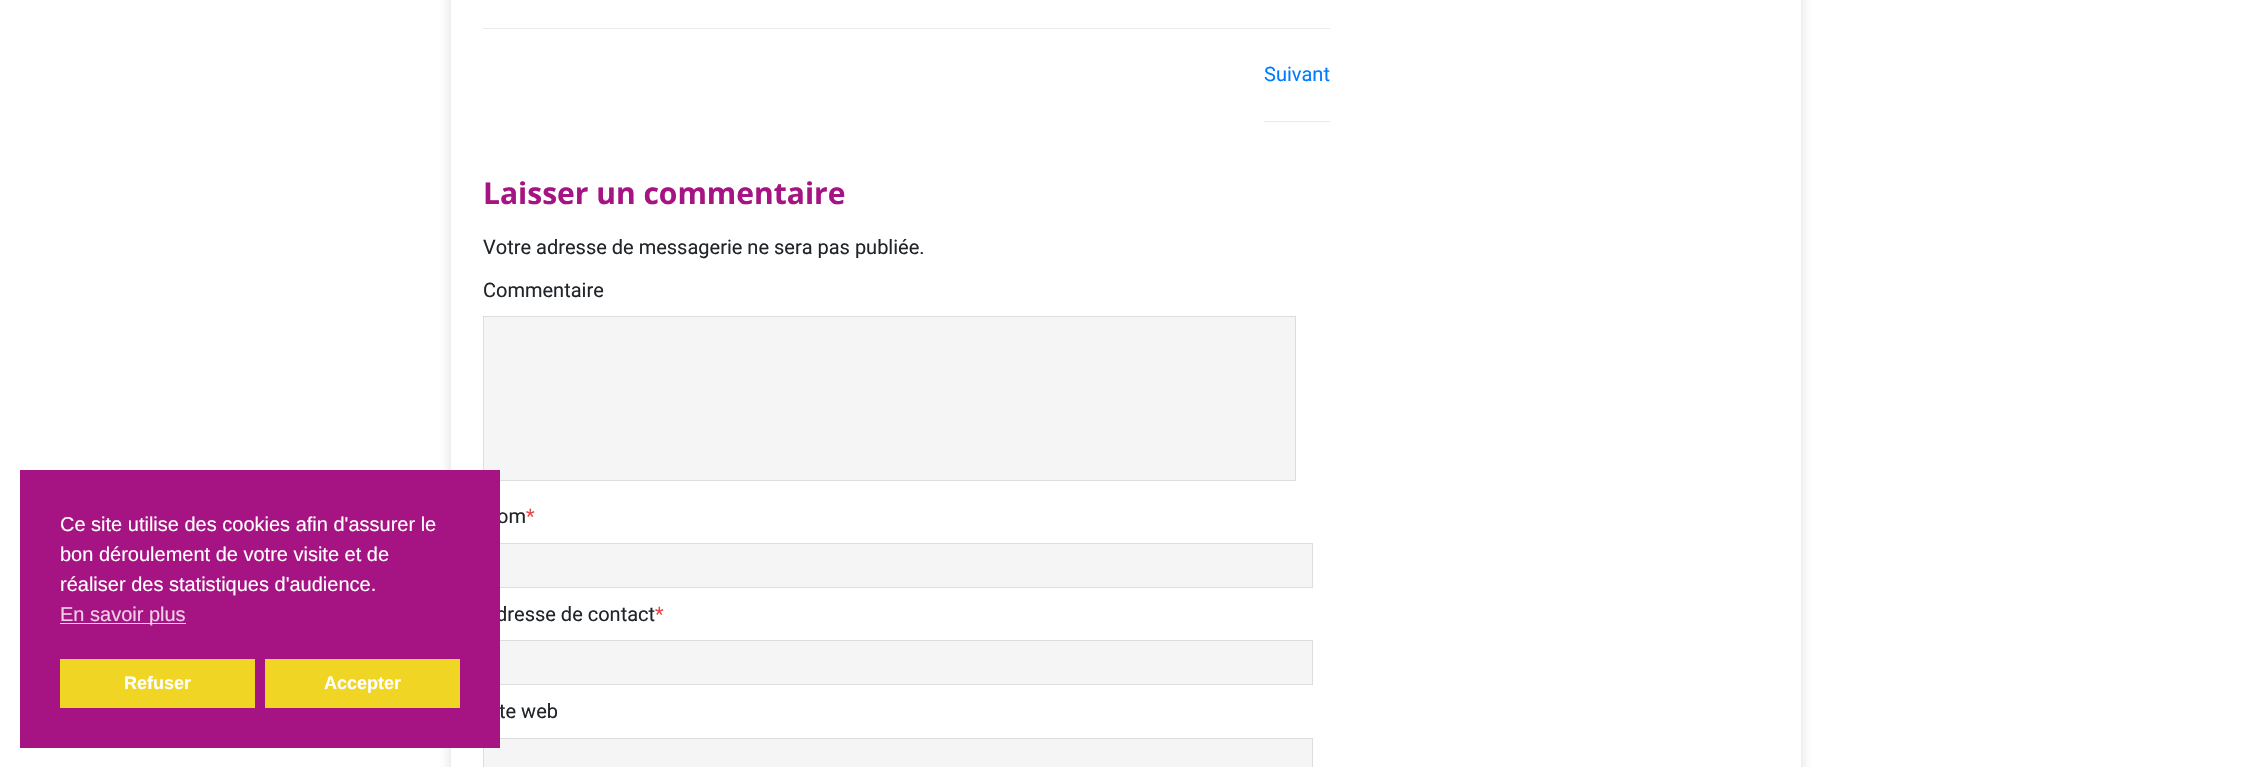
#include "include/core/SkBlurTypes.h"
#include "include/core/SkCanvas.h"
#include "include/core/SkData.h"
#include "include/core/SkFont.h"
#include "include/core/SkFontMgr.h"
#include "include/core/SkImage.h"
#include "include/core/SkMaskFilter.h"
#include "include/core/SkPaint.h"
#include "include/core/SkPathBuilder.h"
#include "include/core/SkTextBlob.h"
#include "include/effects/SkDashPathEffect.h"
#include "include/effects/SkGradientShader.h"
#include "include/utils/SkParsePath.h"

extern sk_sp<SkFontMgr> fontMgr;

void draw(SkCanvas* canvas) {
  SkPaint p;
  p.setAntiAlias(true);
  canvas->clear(SK_ColorWHITE);
  p.setColor(SkColorSetARGB(43, 50, 50, 50));
  p.setMaskFilter(SkMaskFilter::MakeBlur(kNormal_SkBlurStyle, 6));
  canvas->drawRect(SkRect::MakeLTRB(451, -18, 1801, 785), p);
  p.setMaskFilter(nullptr);
  p.setColor(SK_ColorWHITE);
  canvas->drawRect(SkRect::MakeLTRB(451, 0, 1801, 767), p);
  p.setColor(SkColorSetRGB(235, 235, 235));
  canvas->drawRect(SkRect::MakeLTRB(483, 28, 1330, 29), p);
  canvas->drawRect(SkRect::MakeLTRB(1264, 121, 1330, 122), p);
  p.setColor(SkColorSetRGB(245, 245, 245));
  canvas->drawRect(SkRect::MakeLTRB(483.5f, 316.5f, 1295.5f, 480.5f), p);
  p.setStyle(SkPaint::kStroke_Style);
  p.setStrokeWidth(1);
  p.setColor(SkColorSetRGB(221, 221, 221));
  canvas->drawRect(SkRect::MakeLTRB(483.5f, 316.5f, 1295.5f, 480.5f), p);
  p.setStyle(SkPaint::kFill_Style);
  p.setColor(SkColorSetRGB(245, 245, 245));
  canvas->drawRect(SkRect::MakeLTRB(500, 544, 1312, 587), p);
  p.setStyle(SkPaint::kStroke_Style);
  p.setColor(SkColorSetRGB(221, 221, 221));
  canvas->drawRect(SkRect::MakeLTRB(483.5f, 543.5f, 1312.5f, 587.5f), p);
  p.setStyle(SkPaint::kFill_Style);
  p.setColor(SkColorSetRGB(245, 245, 245));
  canvas->drawRect(SkRect::MakeLTRB(500, 641, 1312, 684), p);
  p.setStyle(SkPaint::kStroke_Style);
  p.setColor(SkColorSetRGB(221, 221, 221));
  canvas->drawRect(SkRect::MakeLTRB(483.5f, 640.5f, 1312.5f, 684.5f), p);
  p.setStyle(SkPaint::kFill_Style);
  p.setColor(SkColorSetRGB(245, 245, 245));
  canvas->drawRect(SkRect::MakeLTRB(483.5f, 738.5f, 1312.5f, 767.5f), p);
  p.setStyle(SkPaint::kStroke_Style);
  p.setColor(SkColorSetRGB(221, 221, 221));
  canvas->drawRect(SkRect::MakeLTRB(483.5f, 738.5f, 1312.5f, 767.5f), p);
  SkFont font1(fontMgr->matchFamilyStyle("Roboto", SkFontStyle::Normal()), 20);
  font1.setSubpixel(true);
  p.setStyle(SkPaint::kFill_Style);
  p.setColor(SkColorSetRGB(0, 123, 255));
  canvas->drawString("Suivant", 1264, 81, font1, p);
  SkFont font2(fontMgr->matchFamilyStyle("Open Sans", SkFontStyle::Bold()), 30);
  font2.setSubpixel(true);
  p.setColor(SkColorSetRGB(165, 20, 130));
  canvas->drawString("Laisser un commentaire", 483, 204, font2, p);
  p.setColor(SkColorSetRGB(33, 37, 41));
  canvas->drawString("Votre adresse de messagerie ne sera pas publiée.", 483, 254, font1, p);
  canvas->drawString("Commentaire", 483, 297, font1, p);
  canvas->drawString("om", 497, 523, font1, p);
  p.setColor(SkColorSetRGB(230, 73, 70));
  canvas->drawString("*", 526, 523, font1, p);
  p.setColor(SkColorSetRGB(33, 37, 41));
  canvas->drawString("dresse de contact", 496, 621, font1, p);
  p.setColor(SkColorSetRGB(230, 73, 70));
  canvas->drawString("*", 655, 621, font1, p);
  p.setColor(SkColorSetRGB(33, 37, 41));
  canvas->drawString("te web", 499, 718, font1, p);
  p.setColor(SkColorSetRGB(165, 20, 130));
  canvas->drawRect(SkRect::MakeLTRB(20, 470, 500, 748), p);
  p.setColor(SkColorSetRGB(237, 208, 230));
  canvas->drawRect(SkRect::MakeLTRB(60, 623, 186, 624), p);
  SkFont font3(fontMgr->matchFamilyStyle("Liberation Sans", SkFontStyle::Normal()), 20);
  font3.setSubpixel(true);
  canvas->drawString("En savoir plus", 60, 621, font3, p);
  p.setColor(SkColorSetRGB(240, 213, 36));
  canvas->drawRect(SkRect::MakeLTRB(265, 659, 460, 708), p);
  SkFont font4(fontMgr->matchFamilyStyle("Liberation Sans", SkFontStyle::Bold()), 18);
  font4.setSubpixel(true);
  p.setColor(SK_ColorWHITE);
  canvas->drawString("Accepter", 324, 689, font4, p);
  p.setColor(SkColorSetRGB(240, 213, 36));
  canvas->drawRect(SkRect::MakeLTRB(60, 659, 255, 708), p);
  p.setColor(SK_ColorWHITE);
  canvas->drawString("Refuser", 124, 689, font4, p);
  canvas->drawString("réaliser des statistiques d'audience.", 60, 591, font3, p);
  canvas->drawString("bon déroulement de votre visite et de", 60, 561, font3, p);
  canvas->drawString("Ce site utilise des cookies afin d'assurer le", 60, 531, font3, p);
}
